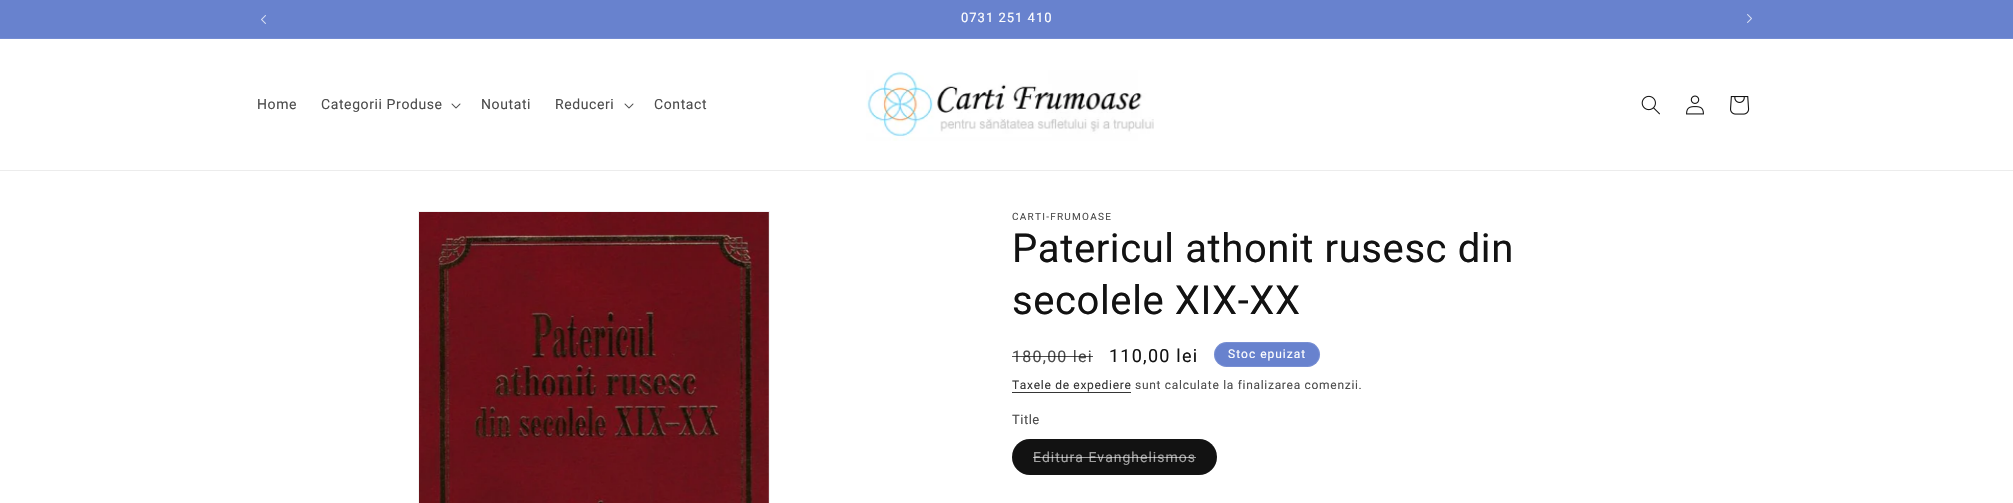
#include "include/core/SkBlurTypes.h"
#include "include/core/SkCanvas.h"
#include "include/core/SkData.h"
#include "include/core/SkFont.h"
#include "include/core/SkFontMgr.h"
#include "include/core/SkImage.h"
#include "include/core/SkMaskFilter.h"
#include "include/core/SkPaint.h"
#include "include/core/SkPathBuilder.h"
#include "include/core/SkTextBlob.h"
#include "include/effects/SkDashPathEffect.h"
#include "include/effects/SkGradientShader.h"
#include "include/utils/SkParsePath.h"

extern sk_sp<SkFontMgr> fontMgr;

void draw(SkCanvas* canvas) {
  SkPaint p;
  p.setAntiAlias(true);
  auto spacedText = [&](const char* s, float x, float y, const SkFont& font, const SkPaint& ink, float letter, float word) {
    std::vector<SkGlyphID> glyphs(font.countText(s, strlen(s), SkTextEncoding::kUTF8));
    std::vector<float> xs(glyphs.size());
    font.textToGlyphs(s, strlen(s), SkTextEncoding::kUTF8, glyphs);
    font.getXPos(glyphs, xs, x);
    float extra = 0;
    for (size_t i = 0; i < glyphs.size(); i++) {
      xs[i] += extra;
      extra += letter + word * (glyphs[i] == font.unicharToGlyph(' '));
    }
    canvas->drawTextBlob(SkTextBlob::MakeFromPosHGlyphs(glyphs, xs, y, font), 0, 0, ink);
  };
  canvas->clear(SK_ColorWHITE);
  p.setColor(SkColorSetRGB(104, 130, 206));
  canvas->drawRect(SkRect::MakeLTRB(0, 0, 2013, 38), p);
  p.setColor(SkColorSetRGB(116, 140, 210));
  canvas->drawRect(SkRect::MakeLTRB(0, 38, 2013, 39), p);
  canvas->drawImageRect(SkImages::DeferredFromEncodedData(SkData::MakeFromFileName("images/1.png")), SkRect::MakeLTRB(261, 15, 266, 24), SkSamplingOptions());
  canvas->drawImageRect(SkImages::DeferredFromEncodedData(SkData::MakeFromFileName("images/2.png")), SkRect::MakeLTRB(1747, 14, 1752, 23), SkSamplingOptions());
  p.setColor(SkColorSetRGB(236, 236, 236));
  canvas->drawRect(SkRect::MakeLTRB(0, 170, 2013, 171), p);
  canvas->drawImageRect(SkImages::DeferredFromEncodedData(SkData::MakeFromFileName("images/3.png")), SkRect::MakeLTRB(451, 103, 461, 109), SkSamplingOptions());
  canvas->drawImageRect(SkImages::DeferredFromEncodedData(SkData::MakeFromFileName("images/3.png")), SkRect::MakeLTRB(624, 103, 634, 109), SkSamplingOptions());
  canvas->drawImageRect(SkImages::DeferredFromEncodedData(SkData::MakeFromFileName("images/4.png")), SkRect::MakeLTRB(866, 70, 1154, 141), SkSamplingOptions());
  canvas->drawImageRect(SkImages::DeferredFromEncodedData(SkData::MakeFromFileName("images/5.png")), SkRect::MakeLTRB(1641, 95, 1660, 115), SkSamplingOptions());
  canvas->drawImageRect(SkImages::DeferredFromEncodedData(SkData::MakeFromFileName("images/6.png")), SkRect::MakeLTRB(1686, 95, 1704, 115), SkSamplingOptions());
  canvas->drawImageRect(SkImages::DeferredFromEncodedData(SkData::MakeFromFileName("images/7.png")), SkRect::MakeLTRB(1730, 96, 1750, 115), SkSamplingOptions());
  p.setStyle(SkPaint::kStroke_Style);
  p.setStrokeWidth(1);
  p.setColor(SkColorSetRGB(243, 243, 243));
  canvas->drawRect(SkRect::MakeLTRB(418.5f, 211.5f, 769.5f, 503.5f), p);
  canvas->drawImageRect(SkImages::DeferredFromEncodedData(SkData::MakeFromFileName("images/8.png")), SkRect::MakeLTRB(419, 212, 769, 503), SkSamplingOptions());
  p.setStyle(SkPaint::kFill_Style);
  p.setColor(SkColorSetRGB(104, 130, 206));
  canvas->drawRoundRect(SkRect::MakeLTRB(1214, 342, 1320, 367), 12.5f, 12.5f, p);
  p.setStyle(SkPaint::kStroke_Style);
  p.setColor(SkColorSetARGB(26, 255, 255, 255));
  canvas->drawRoundRect(SkRect::MakeLTRB(1214.5f, 342.5f, 1319.5f, 366.5f), 12, 12, p);
  p.setStyle(SkPaint::kFill_Style);
  p.setColor(SkColorSetRGB(54, 54, 54));
  canvas->drawRect(SkRect::MakeLTRB(1012, 392, 1131, 393), p);
  p.setColor(SkColorSetRGB(18, 18, 18));
  canvas->drawRoundRect(SkRect::MakeLTRB(1012, 439, 1217, 475), 18, 18, p);
  p.setStyle(SkPaint::kStroke_Style);
  p.setColor(SkColorSetARGB(26, 18, 18, 18));
  canvas->drawRoundRect(SkRect::MakeLTRB(1012.5f, 439.5f, 1216.5f, 474.5f), 17.5f, 17.5f, p);
  SkFont font1(fontMgr->matchFamilyStyle("Roboto", SkFontStyle::Normal()), 13);
  font1.setSubpixel(true);
  p.setStyle(SkPaint::kFill_Style);
  p.setColor(SK_ColorWHITE);
  spacedText("0731 251 410", 961, 22, font1, p, 1, 0);
  SkFont font2(fontMgr->matchFamilyStyle("Roboto", SkFontStyle::Normal()), 14);
  font2.setSubpixel(true);
  p.setColor(SkColorSetRGB(77, 77, 77));
  spacedText("Home", 257, 109, font2, p, 0.6f, 0);
  spacedText("Categorii Produse", 321, 109, font2, p, 0.6f, 0);
  spacedText("Noutati", 481, 109, font2, p, 0.6f, 0);
  spacedText("Reduceri", 555, 109, font2, p, 0.6f, 0);
  spacedText("Contact", 654, 109, font2, p, 0.6f, 0);
  SkFont font3(fontMgr->matchFamilyStyle("Roboto", SkFontStyle::Normal()), 10);
  font3.setSubpixel(true);
  spacedText("CARTI-FRUMOASE", 1012, 220, font3, p, 1.25f, 0);
  SkFont font4(fontMgr->matchFamilyStyle("Roboto", SkFontStyle::Normal()), 40);
  font4.setSubpixel(true);
  p.setColor(SkColorSetRGB(18, 18, 18));
  spacedText("Patericul athonit rusesc din", 1012, 262, font4, p, 0.6f, 0);
  spacedText("secolele XIX-XX", 1012, 314, font4, p, 0.6f, 0);
  SkFont font5(fontMgr->matchFamilyStyle("Roboto", SkFontStyle::Normal()), 16);
  font5.setSubpixel(true);
  p.setColor(SkColorSetRGB(77, 77, 77));
  spacedText("180,00 lei", 1012, 362, font5, p, 1.25f, 0);
  p.setColor(SkColorSetARGB(191, 18, 18, 18));
  canvas->drawRect(SkRect::MakeLTRB(1012, 356, 1093, 357), p);
  SkFont font6(fontMgr->matchFamilyStyle("Roboto", SkFontStyle::Normal()), 18);
  font6.setSubpixel(true);
  p.setColor(SkColorSetRGB(18, 18, 18));
  spacedText("110,00 lei", 1109, 362, font6, p, 1.25f, 0);
  SkFont font7(fontMgr->matchFamilyStyle("Roboto", SkFontStyle::Normal()), 12);
  font7.setSubpixel(true);
  p.setColor(SK_ColorWHITE);
  spacedText("Stoc epuizat", 1228, 358, font7, p, 1, 0);
  p.setColor(SkColorSetRGB(54, 54, 54));
  spacedText("Taxele de expediere", 1012, 389, font7, p, 0.7f, 0);
  p.setColor(SkColorSetRGB(77, 77, 77));
  spacedText("sunt calculate la finalizarea comenzii.", 1135, 389, font7, p, 0.7f, 0);
  spacedText("Title", 1012, 424, font1, p, 0.5f, 0);
  p.setColor(SkColorSetRGB(160, 160, 160));
  spacedText("Editura Evanghelismos", 1033, 462, font2, p, 1, 0);
  p.setColor(SkColorSetARGB(153, 255, 255, 255));
  canvas->drawRect(SkRect::MakeLTRB(1033, 457, 1196, 458), p);
}
